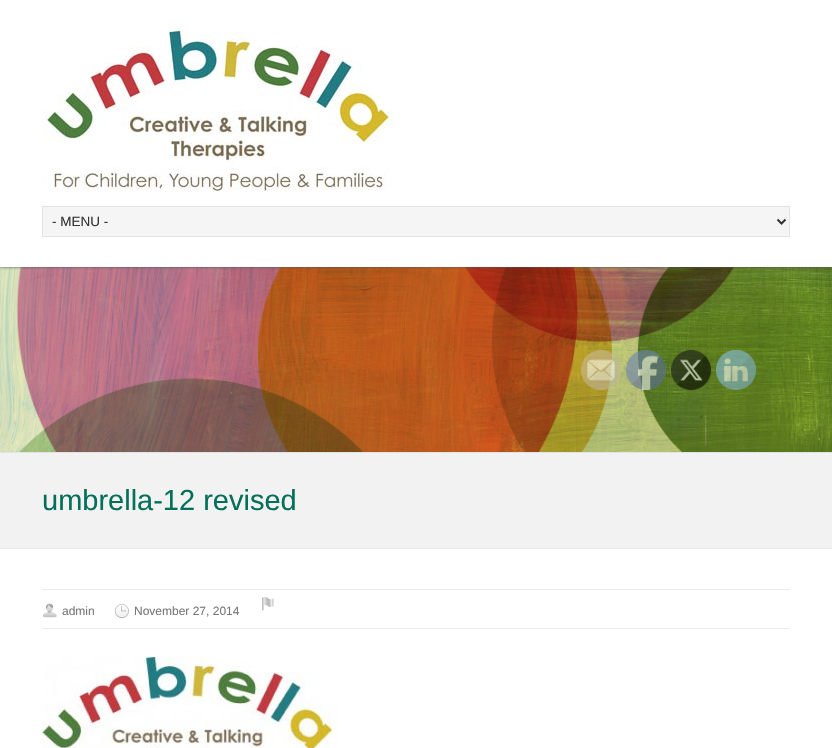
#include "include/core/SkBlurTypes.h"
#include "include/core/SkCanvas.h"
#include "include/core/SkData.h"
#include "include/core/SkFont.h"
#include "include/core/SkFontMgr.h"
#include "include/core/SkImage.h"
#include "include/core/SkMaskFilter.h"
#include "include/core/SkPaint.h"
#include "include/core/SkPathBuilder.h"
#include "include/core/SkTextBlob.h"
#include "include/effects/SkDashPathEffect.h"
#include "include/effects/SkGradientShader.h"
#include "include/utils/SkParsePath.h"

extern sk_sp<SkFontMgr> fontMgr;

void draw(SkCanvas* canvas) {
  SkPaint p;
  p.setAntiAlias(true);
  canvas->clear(SK_ColorWHITE);
  canvas->drawImageRect(SkImages::DeferredFromEncodedData(SkData::MakeFromFileName("images/2.png")), SkRect::MakeLTRB(0, 267, 832, 452), SkSamplingOptions());
  canvas->save();
  canvas->clipRect(SkRect::MakeLTRB(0, 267, 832, 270));
  p.setColor(SkColorSetRGB(85, 85, 85));
  p.setMaskFilter(SkMaskFilter::MakeBlur(kNormal_SkBlurStyle, 1.5f));
  canvas->drawRect(SkRect::MakeLTRB(0, 0, 832, 267), p);
  p.setMaskFilter(nullptr);
  canvas->restore();
  canvas->drawImageRect(SkImages::DeferredFromEncodedData(SkData::MakeFromFileName("images/1.png")), SkRect::MakeLTRB(42, 30, 394, 193), SkSamplingOptions());
  p.setColor(SkColorSetRGB(245, 245, 245));
  canvas->drawRect(SkRect::MakeLTRB(42.5f, 206.5f, 789.5f, 236.5f), p);
  p.setStyle(SkPaint::kStroke_Style);
  p.setStrokeWidth(1);
  p.setColor(SkColorSetRGB(227, 227, 227));
  canvas->drawRect(SkRect::MakeLTRB(42.5f, 206.5f, 789.5f, 236.5f), p);
  p.setStrokeWidth(2);
  p.setColor(SkColorSetRGB(51, 51, 51));
  canvas->drawPath(SkPathBuilder().moveTo(777.5f, 219.5f).lineTo(781.5f, 223.5f).lineTo(785.5f, 219.5f).detach(), p);
  p.setStyle(SkPaint::kFill_Style);
  p.setColor(SkColorSetRGB(227, 227, 227));
  canvas->drawRect(SkRect::MakeLTRB(0, 452, 832, 453), p);
  canvas->drawImageRect(SkImages::DeferredFromEncodedData(SkData::MakeFromFileName("images/3.png")), SkRect::MakeLTRB(581, 350, 621, 390), SkSamplingOptions());
  canvas->drawImageRect(SkImages::DeferredFromEncodedData(SkData::MakeFromFileName("images/4.png")), SkRect::MakeLTRB(626, 350, 666, 390), SkSamplingOptions());
  canvas->drawImageRect(SkImages::DeferredFromEncodedData(SkData::MakeFromFileName("images/5.png")), SkRect::MakeLTRB(671, 350, 711, 390), SkSamplingOptions());
  canvas->drawImageRect(SkImages::DeferredFromEncodedData(SkData::MakeFromFileName("images/6.png")), SkRect::MakeLTRB(716, 350, 756, 390), SkSamplingOptions());
  p.setColor(SkColorSetRGB(242, 242, 242));
  canvas->drawRect(SkRect::MakeLTRB(0, 453, 832, 548), p);
  p.setColor(SkColorSetRGB(235, 235, 235));
  canvas->drawRect(SkRect::MakeLTRB(0, 548, 832, 549), p);
  canvas->drawRect(SkRect::MakeLTRB(42, 589, 790, 590), p);
  canvas->drawRect(SkRect::MakeLTRB(42, 628, 790, 629), p);
  canvas->drawImageRect(SkImages::DeferredFromEncodedData(SkData::MakeFromFileName("images/7.png")), SkRect::MakeLTRB(43, 603, 57, 618), SkSamplingOptions());
  canvas->drawImageRect(SkImages::DeferredFromEncodedData(SkData::MakeFromFileName("images/8.png")), SkRect::MakeLTRB(114, 604, 129, 618), SkSamplingOptions());
  canvas->drawImageRect(SkImages::DeferredFromEncodedData(SkData::MakeFromFileName("images/9.png")), SkRect::MakeLTRB(262, 597, 274, 611), SkSamplingOptions());
  canvas->drawImageRect(SkImages::DeferredFromEncodedData(SkData::MakeFromFileName("images/10.png")), SkRect::MakeLTRB(42, 657, 340, 748), SkSamplingOptions());
  SkFont font1(fontMgr->matchFamilyStyle("Liberation Sans", SkFontStyle::Normal()), 13.5f);
  font1.setSubpixel(true);
  p.setColor(SkColorSetRGB(51, 51, 51));
  canvas->drawString("- MENU -", 52, 226, font1, p);
  SkFont font2(fontMgr->matchFamilyStyle("Liberation Sans", SkFontStyle::Normal()), 29);
  font2.setSubpixel(true);
  p.setColor(SkColorSetRGB(2, 112, 88));
  canvas->drawString("umbrella-12 revised", 42, 510, font2, p);
  SkFont font3(fontMgr->matchFamilyStyle("Liberation Sans", SkFontStyle::Normal()), 12);
  font3.setSubpixel(true);
  p.setColor(SkColorSetRGB(119, 119, 119));
  canvas->drawString("admin", 62, 615, font3, p);
  canvas->drawString("November 27, 2014", 134, 615, font3, p);
}
